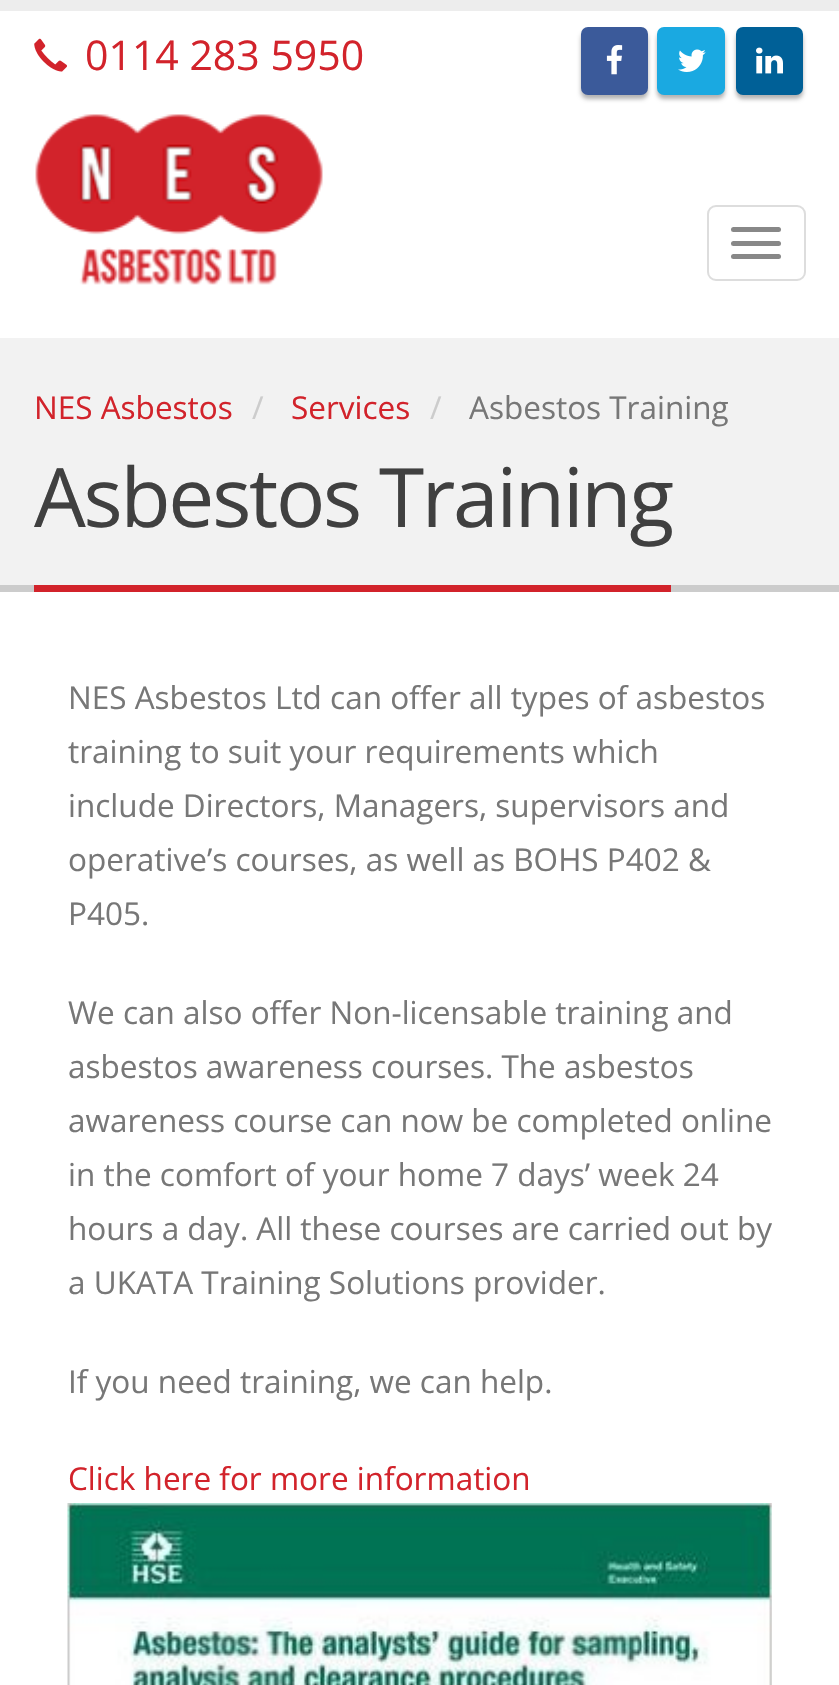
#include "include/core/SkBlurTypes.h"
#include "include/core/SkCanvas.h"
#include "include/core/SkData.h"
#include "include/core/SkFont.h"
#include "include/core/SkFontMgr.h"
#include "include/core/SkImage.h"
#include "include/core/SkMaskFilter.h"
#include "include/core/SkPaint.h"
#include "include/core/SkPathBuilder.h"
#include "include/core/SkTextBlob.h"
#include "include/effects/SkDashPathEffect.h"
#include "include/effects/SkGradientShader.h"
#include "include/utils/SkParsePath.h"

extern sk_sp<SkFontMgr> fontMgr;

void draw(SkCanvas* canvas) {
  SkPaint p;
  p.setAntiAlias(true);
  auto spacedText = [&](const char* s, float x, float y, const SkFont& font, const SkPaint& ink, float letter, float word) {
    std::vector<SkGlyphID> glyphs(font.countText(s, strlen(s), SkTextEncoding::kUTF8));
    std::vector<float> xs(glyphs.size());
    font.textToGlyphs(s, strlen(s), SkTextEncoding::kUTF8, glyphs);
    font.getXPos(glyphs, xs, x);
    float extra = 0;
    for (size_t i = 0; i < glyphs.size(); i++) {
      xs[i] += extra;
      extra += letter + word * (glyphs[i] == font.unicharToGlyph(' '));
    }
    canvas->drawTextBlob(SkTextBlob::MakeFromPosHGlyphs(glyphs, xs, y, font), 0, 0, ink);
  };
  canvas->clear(SK_ColorWHITE);
  p.setColor(SkColorSetRGB(237, 237, 237));
  canvas->drawRect(SkRect::MakeLTRB(0, 0, 839, 11), p);
  canvas->drawImageRect(SkImages::DeferredFromEncodedData(SkData::MakeFromFileName("images/1.png")), SkRect::MakeLTRB(34, 38, 67, 72), SkSamplingOptions());
  p.setColor(SkColorSetARGB(77, 0, 0, 0));
  p.setMaskFilter(SkMaskFilter::MakeBlur(kNormal_SkBlurStyle, 2));
  canvas->drawRoundRect(SkRect::MakeLTRB(581, 32, 648, 99), 7, 7, p);
  p.setMaskFilter(nullptr);
  p.setColor(SkColorSetRGB(59, 90, 154));
  canvas->drawRoundRect(SkRect::MakeLTRB(581, 27, 648, 95), 7, 7, p);
  canvas->drawImageRect(SkImages::DeferredFromEncodedData(SkData::MakeFromFileName("images/2.png")), SkRect::MakeLTRB(606, 45, 623, 75), SkSamplingOptions());
  p.setColor(SkColorSetARGB(77, 0, 0, 0));
  p.setMaskFilter(SkMaskFilter::MakeBlur(kNormal_SkBlurStyle, 2));
  canvas->drawRoundRect(SkRect::MakeLTRB(657, 32, 725, 99), 7, 7, p);
  p.setMaskFilter(nullptr);
  p.setColor(SkColorSetRGB(26, 169, 225));
  canvas->drawRoundRect(SkRect::MakeLTRB(657, 27, 725, 95), 7, 7, p);
  canvas->drawImageRect(SkImages::DeferredFromEncodedData(SkData::MakeFromFileName("images/3.png")), SkRect::MakeLTRB(678, 49, 706, 72), SkSamplingOptions());
  p.setColor(SkColorSetARGB(77, 0, 0, 0));
  p.setMaskFilter(SkMaskFilter::MakeBlur(kNormal_SkBlurStyle, 2));
  canvas->drawRoundRect(SkRect::MakeLTRB(736, 32, 803, 99), 7, 7, p);
  p.setMaskFilter(nullptr);
  p.setColor(SkColorSetRGB(0, 96, 151));
  canvas->drawRoundRect(SkRect::MakeLTRB(736, 27, 803, 95), 7, 7, p);
  canvas->drawImageRect(SkImages::DeferredFromEncodedData(SkData::MakeFromFileName("images/4.png")), SkRect::MakeLTRB(756, 47, 783, 74), SkSamplingOptions());
  canvas->drawImageRect(SkImages::DeferredFromEncodedData(SkData::MakeFromFileName("images/5.png")), SkRect::MakeLTRB(35, 114, 323, 285), SkSamplingOptions());
  p.setStyle(SkPaint::kStroke_Style);
  p.setStrokeWidth(2);
  p.setColor(SkColorSetRGB(221, 221, 221));
  canvas->drawRoundRect(SkRect::MakeLTRB(708, 206, 805, 280), 8, 8, p);
  p.setStyle(SkPaint::kFill_Style);
  p.setColor(SkColorSetRGB(136, 136, 136));
  canvas->drawRoundRect(SkRect::MakeLTRB(731, 227, 781, 232), 2.5f, 2.5f, p);
  canvas->drawRoundRect(SkRect::MakeLTRB(731, 241, 781, 246), 2.5f, 2.5f, p);
  canvas->drawRoundRect(SkRect::MakeLTRB(731, 254, 781, 259), 2.5f, 2.5f, p);
  p.setColor(SkColorSetRGB(242, 242, 242));
  canvas->drawRect(SkRect::MakeLTRB(0, 338, 839, 585), p);
  p.setColor(SkColorSetRGB(204, 204, 204));
  canvas->drawRect(SkRect::MakeLTRB(0, 585, 839, 592), p);
  p.setColor(SkColorSetRGB(210, 35, 43));
  canvas->drawRect(SkRect::MakeLTRB(34, 585, 671, 592), p);
  canvas->drawImageRect(SkImages::DeferredFromEncodedData(SkData::MakeFromFileName("images/6.png")), SkRect::MakeLTRB(67, 1503, 772, 1685), SkSamplingOptions());
  SkFont font1(fontMgr->matchFamilyStyle("Open Sans", SkFontStyle::Normal()), 41);
  font1.setSubpixel(true);
  canvas->drawString("0114 283 5950", 85, 70, font1, p);
  SkFont font2(fontMgr->matchFamilyStyle("Open Sans", SkFontStyle::Normal()), 31.5f);
  font2.setSubpixel(true);
  canvas->drawString("NES Asbestos", 34, 419, font2, p);
  p.setColor(SkColorSetRGB(204, 204, 204));
  canvas->drawString("/", 252, 419, font2, p);
  p.setColor(SkColorSetRGB(210, 35, 43));
  canvas->drawString("Services", 291, 419, font2, p);
  p.setColor(SkColorSetRGB(204, 204, 204));
  canvas->drawString("/", 430, 419, font2, p);
  p.setColor(SkColorSetRGB(119, 119, 119));
  canvas->drawString("Asbestos Training", 469, 419, font2, p);
  SkFont font3(fontMgr->matchFamilyStyle("Open Sans", SkFontStyle::Normal()), 82);
  font3.setSubpixel(true);
  p.setColor(SkColorSetRGB(64, 64, 64));
  spacedText("Asbestos Training", 34, 527, font3, p, -2.25f, 0);
  p.setColor(SkColorSetRGB(119, 119, 119));
  canvas->drawString("NES Asbestos Ltd can offer all types of asbestos", 68, 709, font2, p);
  canvas->drawString("training to suit your requirements which", 68, 763, font2, p);
  canvas->drawString("include Directors, Managers, supervisors and", 68, 817, font2, p);
  canvas->drawString("operative’s courses, as well as BOHS P402 &", 68, 871, font2, p);
  canvas->drawString("P405.", 68, 925, font2, p);
  canvas->drawString("We can also offer Non-licensable training and", 68, 1024, font2, p);
  canvas->drawString("asbestos awareness courses. The asbestos", 68, 1078, font2, p);
  canvas->drawString("awareness course can now be completed online", 68, 1132, font2, p);
  canvas->drawString("in the comfort of your home 7 days’ week 24", 68, 1186, font2, p);
  canvas->drawString("hours a day. All these courses are carried out by", 68, 1240, font2, p);
  canvas->drawString("a UKATA Training Solutions provider.", 68, 1294, font2, p);
  canvas->drawString("If you need training, we can help.", 68, 1393, font2, p);
  p.setColor(SkColorSetRGB(210, 35, 43));
  canvas->drawString("Click here for more information", 68, 1490, font2, p);
}
